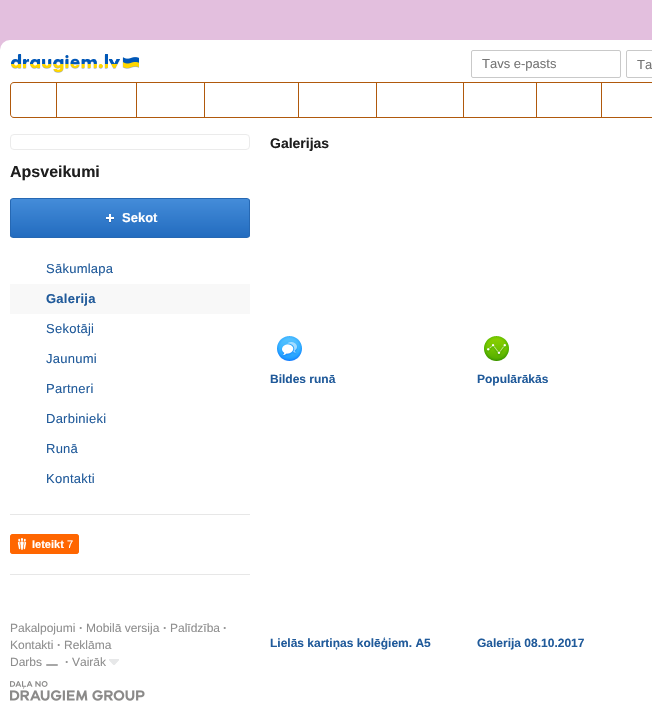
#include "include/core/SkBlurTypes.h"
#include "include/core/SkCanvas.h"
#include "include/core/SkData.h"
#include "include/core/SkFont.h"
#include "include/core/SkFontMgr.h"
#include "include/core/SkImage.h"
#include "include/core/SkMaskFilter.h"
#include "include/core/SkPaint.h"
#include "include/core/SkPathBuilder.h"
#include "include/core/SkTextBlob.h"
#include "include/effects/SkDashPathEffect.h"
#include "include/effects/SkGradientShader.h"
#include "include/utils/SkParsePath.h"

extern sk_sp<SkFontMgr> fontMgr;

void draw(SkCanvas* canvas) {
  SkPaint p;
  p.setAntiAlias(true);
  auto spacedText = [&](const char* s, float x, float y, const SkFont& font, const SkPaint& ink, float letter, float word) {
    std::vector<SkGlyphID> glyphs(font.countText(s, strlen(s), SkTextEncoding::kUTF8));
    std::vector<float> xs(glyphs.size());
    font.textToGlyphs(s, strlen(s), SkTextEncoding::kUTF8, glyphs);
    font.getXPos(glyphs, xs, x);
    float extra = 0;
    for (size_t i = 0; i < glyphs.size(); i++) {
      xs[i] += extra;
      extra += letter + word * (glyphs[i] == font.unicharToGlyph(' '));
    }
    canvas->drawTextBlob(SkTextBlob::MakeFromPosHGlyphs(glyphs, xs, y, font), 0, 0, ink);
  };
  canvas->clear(SkColorSetRGB(227, 191, 222));
  p.setColor(SK_ColorWHITE);
  canvas->drawRoundRect(SkRect::MakeLTRB(0, 40, 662, 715), 10, 10, p);
  canvas->drawImageRect(SkImages::DeferredFromEncodedData(SkData::MakeFromFileName("images/1.png")), SkRect::MakeLTRB(11, 54, 139, 73), SkSamplingOptions());
  p.setStyle(SkPaint::kStroke_Style);
  p.setStrokeWidth(1);
  p.setColor(SkColorSetRGB(201, 201, 201));
  canvas->drawRoundRect(SkRect::MakeLTRB(471.5f, 50.5f, 620.5f, 77.5f), 1.5f, 1.5f, p);
  canvas->drawRoundRect(SkRect::MakeLTRB(626.5f, 50.5f, 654.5f, 77.5f), 1.5f, 1.5f, p);
  p.setStyle(SkPaint::kFill_Style);
  p.setColor(SkColorSetRGB(176, 89, 12));
  canvas->drawPath(SkPathBuilder(SkPathFillType::kEvenOdd).moveTo(14, 82).lineTo(56, 82).lineTo(56, 118).lineTo(14, 118).cubicTo(12, 118, 10, 116, 10, 114).lineTo(10, 86).cubicTo(10, 84, 12, 82, 14, 82).close().moveTo(14, 83).lineTo(56, 83).lineTo(56, 117).lineTo(14, 117).cubicTo(12, 117, 11, 116, 11, 114).lineTo(11, 86).cubicTo(11, 84, 12, 83, 14, 83).close().detach(), p);
  canvas->drawRect(SkRect::MakeLTRB(56, 82, 652, 83), p);
  canvas->drawRect(SkRect::MakeLTRB(56, 117, 652, 118), p);
  canvas->drawRect(SkRect::MakeLTRB(56, 82, 57, 118), p);
  canvas->drawRect(SkRect::MakeLTRB(136, 82, 137, 118), p);
  canvas->drawRect(SkRect::MakeLTRB(204, 82, 205, 118), p);
  canvas->drawRect(SkRect::MakeLTRB(298, 82, 299, 118), p);
  canvas->drawRect(SkRect::MakeLTRB(376, 82, 377, 118), p);
  canvas->drawRect(SkRect::MakeLTRB(463, 82, 464, 118), p);
  canvas->drawRect(SkRect::MakeLTRB(536, 82, 537, 118), p);
  canvas->drawRect(SkRect::MakeLTRB(601, 82, 602, 118), p);
  p.setStyle(SkPaint::kStroke_Style);
  p.setColor(SkColorSetRGB(235, 235, 235));
  canvas->drawRoundRect(SkRect::MakeLTRB(10.5f, 134.5f, 249.5f, 149.5f), 3.5f, 3.5f, p);
  canvas->save();
  canvas->clipRect(SkRect::MakeLTRB(10, 198, 250, 238));
  p.setStyle(SkPaint::kFill_Style);
  canvas->drawPath(SkPathBuilder().moveTo(10, 235).cubicTo(10, 237, 11, 239, 13, 239).lineTo(247, 239).cubicTo(249, 239, 250, 237, 250, 235).cubicTo(250, 237, 249, 238, 247, 238).lineTo(13, 238).cubicTo(11, 238, 10, 237, 10, 235).close().detach(), p);
  canvas->restore();
  canvas->save();
  canvas->clipPath(SkPathBuilder().moveTo(13, 198).lineTo(247, 198).cubicTo(248.5f, 198, 250, 199.5f, 250, 201).lineTo(250, 235).cubicTo(250, 236.5f, 248.5f, 238, 247, 238).lineTo(13, 238).cubicTo(11.5f, 238, 10, 236.5f, 10, 235).lineTo(10, 201).cubicTo(10, 199.5f, 11.5f, 198, 13, 198).close().detach(), true);
  {
    const SkColor colors[] = {SkColorSetRGB(68, 140, 217), SkColorSetRGB(35, 108, 191)};
    const float stops[] = {0, 1};
    const SkPoint ends[] = {{130, 199}, {130, 237}};
    p.setShader(SkGradientShader::MakeLinear(ends, colors, stops, 2, SkTileMode::kClamp));
    p.setAlpha(255);
  }
  canvas->drawRect(SkRect::MakeLTRB(10, 199, 250, 237), p);
  canvas->restore();
  p.setStyle(SkPaint::kStroke_Style);
  p.setShader(nullptr);
  p.setColor(SkColorSetRGB(38, 104, 179));
  canvas->drawRoundRect(SkRect::MakeLTRB(10.5f, 198.5f, 249.5f, 237.5f), 2.5f, 2.5f, p);
  canvas->drawImageRect(SkImages::DeferredFromEncodedData(SkData::MakeFromFileName("images/2.png")), SkRect::MakeLTRB(106, 214, 114, 223), SkSamplingOptions());
  p.setStyle(SkPaint::kFill_Style);
  p.setColor(SkColorSetRGB(248, 248, 248));
  canvas->drawRect(SkRect::MakeLTRB(10, 284, 250, 314), p);
  p.setColor(SkColorSetRGB(231, 231, 231));
  canvas->drawRect(SkRect::MakeLTRB(10, 514, 250, 515), p);
  p.setColor(SkColorSetRGB(255, 102, 0));
  canvas->drawRoundRect(SkRect::MakeLTRB(10, 534, 79, 554), 3, 3, p);
  p.setStyle(SkPaint::kStroke_Style);
  canvas->drawRoundRect(SkRect::MakeLTRB(10.5f, 534.5f, 78.5f, 553.5f), 2.5f, 2.5f, p);
  canvas->drawImageRect(SkImages::DeferredFromEncodedData(SkData::MakeFromFileName("images/3.png")), SkRect::MakeLTRB(17, 538, 27, 550), SkSamplingOptions());
  p.setStyle(SkPaint::kFill_Style);
  p.setColor(SkColorSetRGB(231, 231, 231));
  canvas->drawRect(SkRect::MakeLTRB(10, 574, 250, 575), p);
  p.setColor(SkColorSetRGB(167, 167, 167));
  canvas->drawRoundRect(SkRect::MakeLTRB(46, 664, 58, 666), 1, 1, p);
  canvas->drawImageRect(SkImages::DeferredFromEncodedData(SkData::MakeFromFileName("images/4.png")), SkRect::MakeLTRB(109, 659, 119, 665), SkSamplingOptions());
  canvas->drawImageRect(SkImages::DeferredFromEncodedData(SkData::MakeFromFileName("images/5.png")), SkRect::MakeLTRB(10, 681, 145, 701), SkSamplingOptions());
  canvas->drawImageRect(SkImages::DeferredFromEncodedData(SkData::MakeFromFileName("images/6.png")), SkRect::MakeLTRB(277, 336, 302, 361), SkSamplingOptions());
  canvas->drawImageRect(SkImages::DeferredFromEncodedData(SkData::MakeFromFileName("images/7.png")), SkRect::MakeLTRB(484, 336, 509, 361), SkSamplingOptions());
  SkFont font1(fontMgr->matchFamilyStyle("Liberation Sans", SkFontStyle::Normal()), 13);
  font1.setSubpixel(true);
  p.setColor(SkColorSetRGB(117, 117, 117));
  canvas->drawString("Tavs e-pasts", 482, 68, font1, p);
  canvas->drawString("Ta", 637, 69, font1, p);
  SkFont font2(fontMgr->matchFamilyStyle("Liberation Sans", SkFontStyle::Bold()), 16);
  font2.setSubpixel(true);
  p.setColor(SkColorSetRGB(30, 30, 30));
  canvas->drawString("Apsveikumi", 10, 177, font2, p);
  SkFont font3(fontMgr->matchFamilyStyle("Liberation Sans", SkFontStyle::Bold()), 13);
  font3.setSubpixel(true);
  p.setColor(SK_ColorWHITE);
  canvas->drawString("Sekot", 122, 222, font3, p);
  p.setColor(SkColorSetRGB(32, 90, 154));
  spacedText("Sākumlapa", 46, 273, font1, p, 0.25f, 0);
  spacedText("Galerija", 46, 303, font3, p, 0.25f, 0);
  spacedText("Sekotāji", 46, 333, font1, p, 0.25f, 0);
  spacedText("Jaunumi", 46, 363, font1, p, 0.25f, 0);
  spacedText("Partneri", 46, 393, font1, p, 0.25f, 0);
  spacedText("Darbinieki", 46, 423, font1, p, 0.25f, 0);
  spacedText("Runā", 46, 453, font1, p, 0.25f, 0);
  spacedText("Kontakti", 46, 483, font1, p, 0.25f, 0);
  SkFont font4(fontMgr->matchFamilyStyle("Liberation Sans", SkFontStyle::Bold()), 11);
  font4.setSubpixel(true);
  p.setColor(SK_ColorWHITE);
  canvas->drawString("Ieteikt", 32, 548, font4, p);
  SkFont font5(fontMgr->matchFamilyStyle("Liberation Sans", SkFontStyle::Normal()), 11);
  font5.setSubpixel(true);
  canvas->drawString("7", 67, 548, font5, p);
  SkFont font6(fontMgr->matchFamilyStyle("Liberation Sans", SkFontStyle::Normal()), 12);
  font6.setSubpixel(true);
  p.setColor(SkColorSetRGB(142, 142, 142));
  canvas->drawString("Pakalpojumi", 10, 632, font6, p);
  SkFont font7(fontMgr->matchFamilyStyle("Liberation Sans", SkFontStyle::Bold()), 12);
  font7.setSubpixel(true);
  canvas->drawString("·", 79, 632, font7, p);
  canvas->drawString("Mobilā versija", 86, 632, font6, p);
  canvas->drawString("·", 163, 632, font7, p);
  canvas->drawString("Palīdzība", 170, 632, font6, p);
  canvas->drawString("·", 223, 632, font7, p);
  canvas->drawString("Kontakti", 10, 649, font6, p);
  canvas->drawString("·", 57, 649, font7, p);
  canvas->drawString("Reklāma", 64, 649, font6, p);
  canvas->drawString("Darbs", 10, 666, font6, p);
  canvas->drawString("·", 65, 666, font7, p);
  canvas->drawString("Vairāk", 72, 666, font6, p);
  SkFont font8(fontMgr->matchFamilyStyle("Liberation Sans", SkFontStyle::Bold()), 14);
  font8.setSubpixel(true);
  p.setColor(SkColorSetRGB(30, 30, 30));
  canvas->drawString("Galerijas", 270, 148, font8, p);
  p.setColor(SkColorSetRGB(32, 90, 154));
  canvas->drawString("Bildes runā", 270, 383, font7, p);
  canvas->drawString("Populārākās", 477, 383, font7, p);
  canvas->drawString("Lielās kartiņas kolēģiem. A5", 270, 647, font7, p);
  canvas->drawString("Galerija 08.10.2017", 477, 647, font7, p);
}
